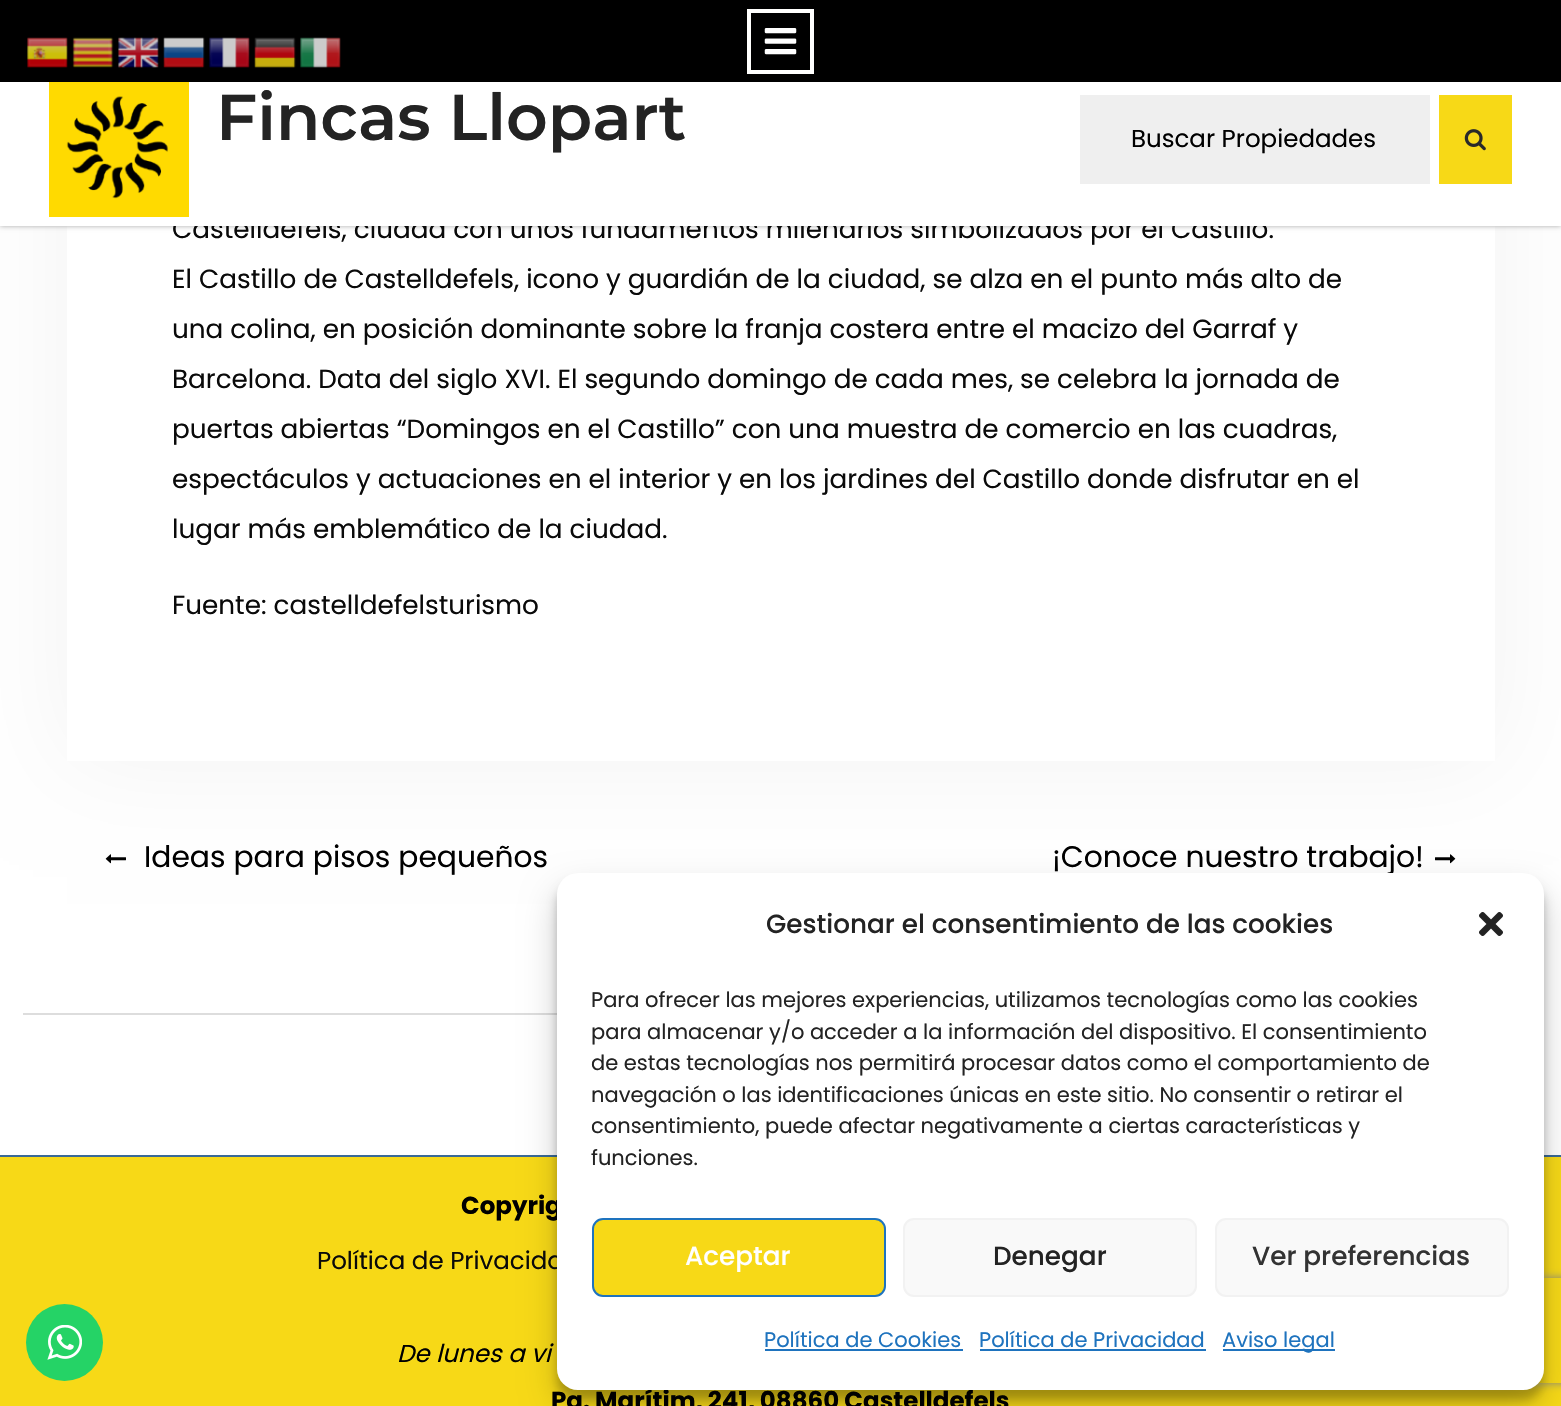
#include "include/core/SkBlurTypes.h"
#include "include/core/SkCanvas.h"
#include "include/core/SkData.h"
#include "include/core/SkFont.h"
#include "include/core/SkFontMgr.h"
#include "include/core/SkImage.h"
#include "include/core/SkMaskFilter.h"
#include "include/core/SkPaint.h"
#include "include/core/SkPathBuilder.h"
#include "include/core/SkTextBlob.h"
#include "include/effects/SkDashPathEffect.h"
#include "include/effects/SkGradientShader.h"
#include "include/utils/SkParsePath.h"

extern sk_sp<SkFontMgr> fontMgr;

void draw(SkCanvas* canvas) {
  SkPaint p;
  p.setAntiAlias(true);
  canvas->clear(SK_ColorWHITE);
  p.setColor(SkColorSetRGB(243, 243, 243));
  p.setMaskFilter(SkMaskFilter::MakeBlur(kNormal_SkBlurStyle, 48));
  canvas->drawRect(SkRect::MakeLTRB(67, -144, 1495, 761), p);
  p.setMaskFilter(nullptr);
  p.setColor(SK_ColorWHITE);
  canvas->drawRect(SkRect::MakeLTRB(67, 226, 1495, 761), p);
  p.setColor(SkColorSetRGB(170, 170, 170));
  p.setMaskFilter(SkMaskFilter::MakeBlur(kNormal_SkBlurStyle, 2.5f));
  canvas->drawRect(SkRect::MakeLTRB(0, 68, 1561, 226), p);
  p.setMaskFilter(nullptr);
  p.setColor(SK_ColorBLACK);
  canvas->drawRect(SkRect::MakeLTRB(0, 0, 1561, 82), p);
  canvas->drawImageRect(SkImages::DeferredFromEncodedData(SkData::MakeFromFileName("images/1.png")), SkRect::MakeLTRB(27, 37, 68, 68), SkSamplingOptions());
  canvas->drawImageRect(SkImages::DeferredFromEncodedData(SkData::MakeFromFileName("images/2.png")), SkRect::MakeLTRB(72, 37, 114, 68), SkSamplingOptions());
  canvas->drawImageRect(SkImages::DeferredFromEncodedData(SkData::MakeFromFileName("images/3.png")), SkRect::MakeLTRB(118, 37, 159, 68), SkSamplingOptions());
  canvas->drawImageRect(SkImages::DeferredFromEncodedData(SkData::MakeFromFileName("images/4.png")), SkRect::MakeLTRB(163, 37, 205, 68), SkSamplingOptions());
  canvas->drawImageRect(SkImages::DeferredFromEncodedData(SkData::MakeFromFileName("images/5.png")), SkRect::MakeLTRB(209, 37, 250, 68), SkSamplingOptions());
  canvas->drawImageRect(SkImages::DeferredFromEncodedData(SkData::MakeFromFileName("images/6.png")), SkRect::MakeLTRB(254, 37, 296, 68), SkSamplingOptions());
  canvas->drawImageRect(SkImages::DeferredFromEncodedData(SkData::MakeFromFileName("images/7.png")), SkRect::MakeLTRB(300, 37, 341, 68), SkSamplingOptions());
  p.setColor(SkColorSetRGB(247, 217, 23));
  canvas->drawRect(SkRect::MakeLTRB(0, 1157, 1561, 1406), p);
  p.setColor(SkColorSetRGB(37, 211, 102));
  canvas->drawCircle(64.5f, 1342.5f, 38.5f, p);
  canvas->drawImageRect(SkImages::DeferredFromEncodedData(SkData::MakeFromFileName("images/8.png")), SkRect::MakeLTRB(47, 1325, 82, 1360), SkSamplingOptions());
  p.setStyle(SkPaint::kStroke_Style);
  p.setStrokeWidth(4);
  p.setColor(SkColorSetRGB(255, 255, 254));
  canvas->drawRect(SkRect::MakeLTRB(749, 11, 812, 72), p);
  canvas->drawImageRect(SkImages::DeferredFromEncodedData(SkData::MakeFromFileName("images/9.png")), SkRect::MakeLTRB(764, 28, 797, 55), SkSamplingOptions());
  p.setStyle(SkPaint::kFill_Style);
  p.setColor(SkColorSetRGB(221, 221, 221));
  canvas->drawRect(SkRect::MakeLTRB(23, 1013, 557, 1015), p);
  canvas->drawImageRect(SkImages::DeferredFromEncodedData(SkData::MakeFromFileName("images/12.png")), SkRect::MakeLTRB(105, 854, 126, 864), SkSamplingOptions());
  canvas->drawImageRect(SkImages::DeferredFromEncodedData(SkData::MakeFromFileName("images/13.png")), SkRect::MakeLTRB(1435, 854, 1456, 864), SkSamplingOptions());
  p.setColor(SkColorSetRGB(58, 105, 150));
  canvas->drawRect(SkRect::MakeLTRB(0, 1155, 1561, 1157), p);
  p.setColor(SkColorSetARGB(59, 0, 0, 0));
  p.setMaskFilter(SkMaskFilter::MakeBlur(kNormal_SkBlurStyle, 5));
  canvas->drawRoundRect(SkRect::MakeLTRB(557, 884, 1544, 1400), 21, 21, p);
  p.setMaskFilter(nullptr);
  p.setColor(SkColorSetARGB(48, 0, 0, 0));
  p.setMaskFilter(SkMaskFilter::MakeBlur(kNormal_SkBlurStyle, 17.5f));
  canvas->drawRoundRect(SkRect::MakeLTRB(557, 891, 1544, 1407), 21, 21, p);
  p.setMaskFilter(nullptr);
  canvas->save();
  canvas->clipPath(SkPathBuilder(SkPathFillType::kEvenOdd).moveTo(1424, 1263).lineTo(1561, 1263).lineTo(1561, 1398).lineTo(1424, 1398).close().moveTo(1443, 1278).lineTo(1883, 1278).cubicTo(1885, 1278, 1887, 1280, 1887, 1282).lineTo(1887, 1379).cubicTo(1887, 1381, 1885, 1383, 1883, 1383).lineTo(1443, 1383).cubicTo(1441, 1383, 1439, 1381, 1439, 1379).lineTo(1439, 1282).cubicTo(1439, 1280, 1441, 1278, 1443, 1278).close().detach(), true);
  p.setColor(SkColorSetRGB(128, 128, 128));
  p.setMaskFilter(SkMaskFilter::MakeBlur(kNormal_SkBlurStyle, 4.5f));
  canvas->drawRoundRect(SkRect::MakeLTRB(1439, 1278, 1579, 1383), 4, 4, p);
  p.setMaskFilter(nullptr);
  canvas->restore();
  SkFont font1(fontMgr->matchFamilyStyle("Poppins", SkFontStyle::Normal()), 26.25f);
  font1.setSubpixel(true);
  p.setColor(SkColorSetRGB(10, 10, 10));
  canvas->drawString("Castelldefels, ciudad con unos fundamentos milenarios simbolizados por el Castillo.", 172, 238, font1, p);
  p.setColor(SK_ColorWHITE);
  canvas->drawRect(SkRect::MakeLTRB(0, 82, 1561, 226), p);
  p.setColor(SkColorSetRGB(239, 239, 239));
  canvas->drawRect(SkRect::MakeLTRB(1080, 95, 1430, 184), p);
  SkFont font2(fontMgr->matchFamilyStyle("Poppins", SkFontStyle::Normal()), 24.5f);
  font2.setSubpixel(true);
  p.setColor(SK_ColorBLACK);
  canvas->drawString("Buscar Propiedades", 1131, 147, font2, p);
  p.setColor(SkColorSetRGB(247, 217, 23));
  canvas->drawRect(SkRect::MakeLTRB(1439, 95, 1512, 184), p);
  canvas->drawImageRect(SkImages::DeferredFromEncodedData(SkData::MakeFromFileName("images/11.png")), SkRect::MakeLTRB(1464, 129, 1486, 151), SkSamplingOptions());
  SkFont font3(fontMgr->matchFamilyStyle("Montserrat", SkFontStyle(600, SkFontStyle::kNormal_Width, SkFontStyle::kUpright_Slant)), 64.75f);
  font3.setSubpixel(true);
  p.setColor(SkColorSetRGB(35, 35, 35));
  canvas->drawString("Fincas Llopart", 216, 140, font3, p);
  canvas->drawImageRect(SkImages::DeferredFromEncodedData(SkData::MakeFromFileName("images/10.png")), SkRect::MakeLTRB(49, 82, 189, 217), SkSamplingOptions());
  p.setColor(SkColorSetRGB(10, 10, 10));
  canvas->drawString("El Castillo de Castelldefels, icono y guardián de la ciudad, se alza en el punto más alto de", 172, 288, font1, p);
  canvas->drawString("una colina, en posición dominante sobre la franja costera entre el macizo del Garraf y", 172, 338, font1, p);
  canvas->drawString("Barcelona. Data del siglo XVI. El segundo domingo de cada mes, se celebra la jornada de", 172, 388, font1, p);
  canvas->drawString("puertas abiertas “Domingos en el Castillo” con una muestra de comercio en las cuadras,", 172, 438, font1, p);
  canvas->drawString("espectáculos y actuaciones en el interior y en los jardines del Castillo donde disfrutar en el", 172, 488, font1, p);
  canvas->drawString("lugar más emblemático de la ciudad.", 172, 538, font1, p);
  canvas->drawString("Fuente: castelldefelsturismo", 172, 614, font1, p);
  SkFont font4(fontMgr->matchFamilyStyle("Poppins", SkFontStyle::Normal()), 29.75f);
  font4.setSubpixel(true);
  p.setColor(SK_ColorBLACK);
  canvas->drawString("Ideas para pisos pequeños", 144, 867, font4, p);
  canvas->drawString("¡Conoce nuestro trabajo!", 1052, 867, font4, p);
  SkFont font5(fontMgr->matchFamilyStyle("Poppins", SkFontStyle::Bold()), 24.5f);
  font5.setSubpixel(true);
  canvas->drawString("Copyrig", 461, 1214, font5, p);
  p.setColor(SkColorSetRGB(10, 10, 10));
  canvas->drawString("Política de Privacida", 317, 1269, font2, p);
  SkFont font6(fontMgr->matchFamilyStyle("Poppins", SkFontStyle::Italic()), 24.5f);
  font6.setSubpixel(true);
  p.setColor(SK_ColorBLACK);
  canvas->drawString("De lunes a vi", 397, 1362, font6, p);
  canvas->drawString("Pg. Marítim, 241, 08860 Castelldefels", 551, 1409, font5, p);
  p.setColor(SK_ColorWHITE);
  canvas->drawRoundRect(SkRect::MakeLTRB(557, 873, 1544, 1390), 21, 21, p);
  SkFont font7(fontMgr->matchFamilyStyle("Poppins", SkFontStyle(500, SkFontStyle::kNormal_Width, SkFontStyle::kUpright_Slant)), 26.25f);
  font7.setSubpixel(true);
  p.setColor(SkColorSetRGB(35, 35, 35));
  canvas->drawString("Gestionar el consentimiento de las cookies", 766, 933, font7, p);
  canvas->drawImageRect(SkImages::DeferredFromEncodedData(SkData::MakeFromFileName("images/14.png")), SkRect::MakeLTRB(1479, 912, 1503, 936), SkSamplingOptions());
  SkFont font8(fontMgr->matchFamilyStyle("Poppins", SkFontStyle::Normal()), 21);
  font8.setSubpixel(true);
  canvas->drawString("Para ofrecer las mejores experiencias, utilizamos tecnologías como las cookies", 591, 1007, font8, p);
  canvas->drawString("para almacenar y/o acceder a la información del dispositivo. El consentimiento", 591, 1039, font8, p);
  canvas->drawString("de estas tecnologías nos permitirá procesar datos como el comportamiento de", 591, 1070, font8, p);
  canvas->drawString("navegación o las identificaciones únicas en este sitio. No consentir o retirar el", 591, 1102, font8, p);
  canvas->drawString("consentimiento, puede afectar negativamente a ciertas características y", 591, 1133, font8, p);
  canvas->drawString("funciones.", 591, 1165, font8, p);
  p.setColor(SkColorSetRGB(247, 217, 23));
  canvas->drawRoundRect(SkRect::MakeLTRB(593, 1219, 885, 1296), 10, 10, p);
  p.setStyle(SkPaint::kStroke_Style);
  p.setStrokeWidth(2);
  p.setColor(SkColorSetRGB(30, 115, 190));
  canvas->drawRoundRect(SkRect::MakeLTRB(593, 1219, 885, 1296), 10, 10, p);
  p.setStyle(SkPaint::kFill_Style);
  p.setColor(SK_ColorWHITE);
  canvas->drawString("Aceptar", 685, 1265, font7, p);
  p.setColor(SkColorSetRGB(249, 249, 249));
  canvas->drawRoundRect(SkRect::MakeLTRB(904, 1219, 1196, 1296), 10, 10, p);
  p.setStyle(SkPaint::kStroke_Style);
  p.setColor(SkColorSetRGB(242, 242, 242));
  canvas->drawRoundRect(SkRect::MakeLTRB(904, 1219, 1196, 1296), 10, 10, p);
  p.setStyle(SkPaint::kFill_Style);
  p.setColor(SkColorSetRGB(35, 35, 35));
  canvas->drawString("Denegar", 993, 1265, font7, p);
  p.setColor(SkColorSetRGB(249, 249, 249));
  canvas->drawRoundRect(SkRect::MakeLTRB(1216, 1219, 1508, 1296), 10, 10, p);
  p.setStyle(SkPaint::kStroke_Style);
  p.setColor(SkColorSetRGB(242, 242, 242));
  canvas->drawRoundRect(SkRect::MakeLTRB(1216, 1219, 1508, 1296), 10, 10, p);
  p.setStyle(SkPaint::kFill_Style);
  p.setColor(SkColorSetRGB(51, 51, 51));
  canvas->drawString("Ver preferencias", 1252, 1265, font7, p);
  p.setColor(SkColorSetRGB(30, 115, 190));
  canvas->drawString("Política de Cookies", 764, 1347, font8, p);
  canvas->drawRect(SkRect::MakeLTRB(765, 1349, 963, 1351), p);
  canvas->drawString("Política de Privacidad", 979, 1347, font8, p);
  canvas->drawRect(SkRect::MakeLTRB(980, 1349, 1206, 1351), p);
  canvas->drawRect(SkRect::MakeLTRB(1223, 1349, 1335, 1351), p);
  canvas->drawString("Aviso legal", 1222, 1347, font8, p);
}
